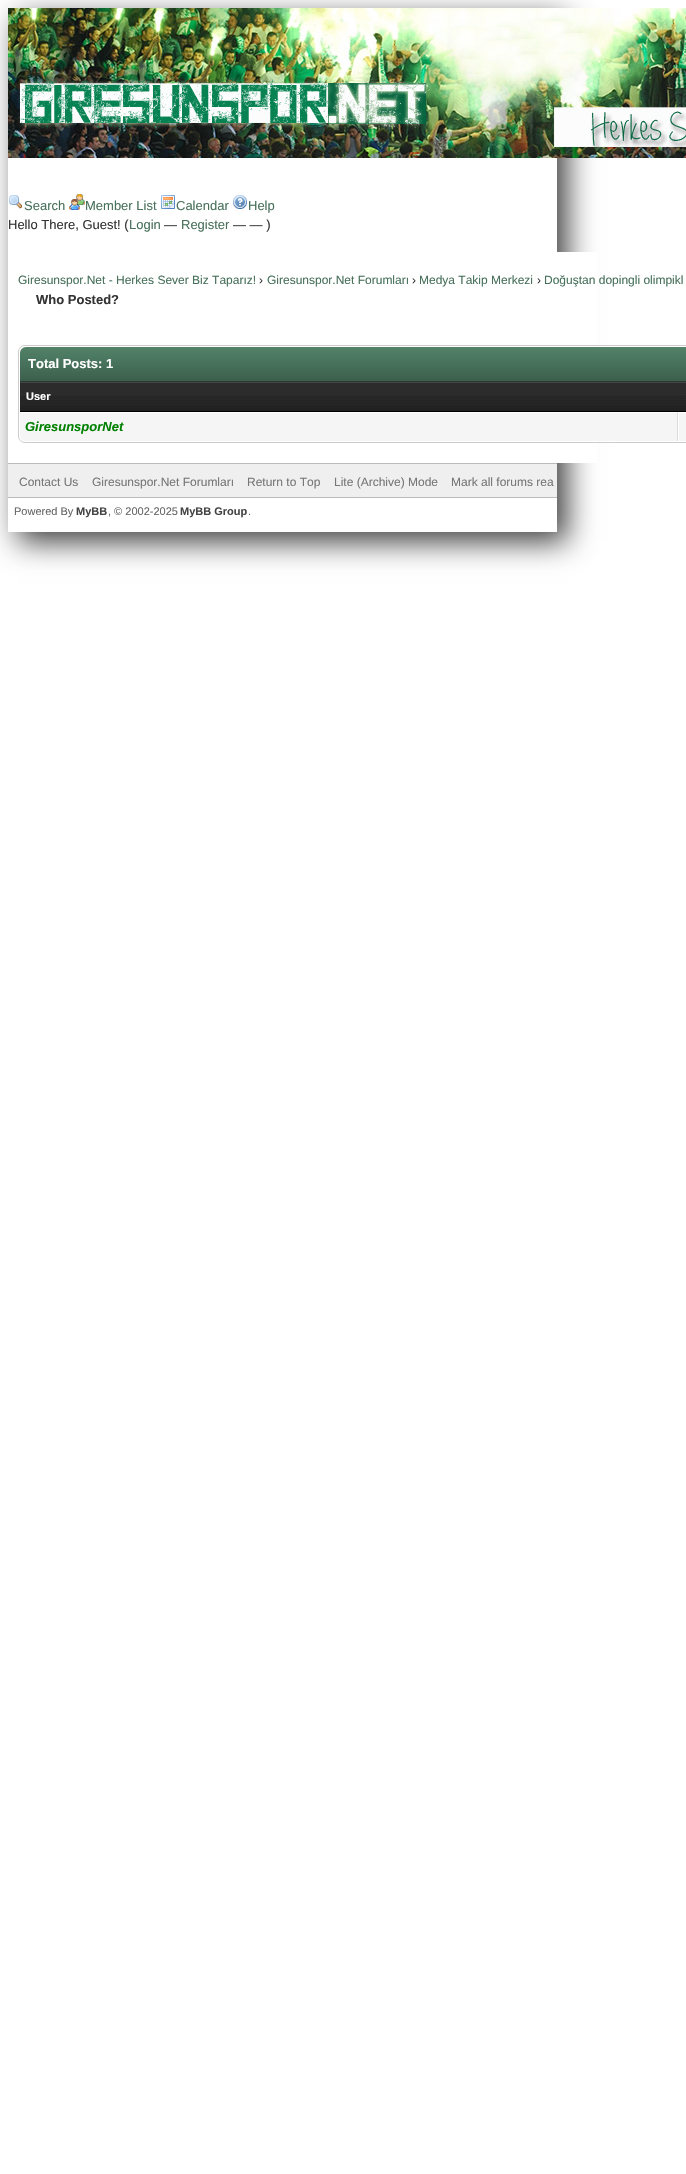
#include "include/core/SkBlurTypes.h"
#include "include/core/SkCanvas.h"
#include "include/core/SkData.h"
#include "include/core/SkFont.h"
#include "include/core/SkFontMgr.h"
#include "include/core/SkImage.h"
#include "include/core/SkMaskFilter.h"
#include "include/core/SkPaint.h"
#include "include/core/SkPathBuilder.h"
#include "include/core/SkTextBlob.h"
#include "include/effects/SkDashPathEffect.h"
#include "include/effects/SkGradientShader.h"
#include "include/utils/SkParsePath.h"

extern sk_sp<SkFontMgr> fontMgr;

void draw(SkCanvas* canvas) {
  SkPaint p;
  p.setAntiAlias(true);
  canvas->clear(SK_ColorWHITE);
  canvas->save();
  canvas->clipPath(SkPathBuilder(SkPathFillType::kEvenOdd).moveTo(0, 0).lineTo(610, 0).lineTo(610, 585).lineTo(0, 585).close().moveTo(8, 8).lineTo(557, 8).lineTo(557, 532).lineTo(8, 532).close().detach(), true);
  p.setColor(SkColorSetARGB(191, 0, 0, 0));
  p.setMaskFilter(SkMaskFilter::MakeBlur(kNormal_SkBlurStyle, 14));
  canvas->drawRect(SkRect::MakeLTRB(18, 18, 567, 542), p);
  p.setMaskFilter(nullptr);
  canvas->restore();
  canvas->drawImageRect(SkImages::DeferredFromEncodedData(SkData::MakeFromFileName("images/1.png")), SkRect::MakeLTRB(8, 8, 686, 158), SkSamplingOptions());
  canvas->drawImageRect(SkImages::DeferredFromEncodedData(SkData::MakeFromFileName("images/2.png")), SkRect::MakeLTRB(9, 195, 22, 209), SkSamplingOptions());
  canvas->drawImageRect(SkImages::DeferredFromEncodedData(SkData::MakeFromFileName("images/3.png")), SkRect::MakeLTRB(69, 194, 85, 210), SkSamplingOptions());
  canvas->drawImageRect(SkImages::DeferredFromEncodedData(SkData::MakeFromFileName("images/4.png")), SkRect::MakeLTRB(161, 195, 175, 209), SkSamplingOptions());
  canvas->drawImageRect(SkImages::DeferredFromEncodedData(SkData::MakeFromFileName("images/5.png")), SkRect::MakeLTRB(233, 195, 247, 209), SkSamplingOptions());
  p.setColor(SK_ColorWHITE);
  canvas->drawRect(SkRect::MakeLTRB(557, 252, 598, 463), p);
  p.setStyle(SkPaint::kStroke_Style);
  p.setStrokeWidth(1);
  p.setColor(SkColorSetRGB(204, 204, 204));
  canvas->drawRoundRect(SkRect::MakeLTRB(18.5f, 345.5f, 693.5f, 442.5f), 6.5f, 6.5f, p);
  canvas->drawImageRect(SkImages::DeferredFromEncodedData(SkData::MakeFromFileName("images/6.png")), SkRect::MakeLTRB(20, 347, 686, 381), SkSamplingOptions());
  p.setStyle(SkPaint::kFill_Style);
  p.setColor(SkColorSetRGB(38, 60, 48));
  canvas->drawRect(SkRect::MakeLTRB(20, 381, 686, 382), p);
  canvas->drawImageRect(SkImages::DeferredFromEncodedData(SkData::MakeFromFileName("images/7.png")), SkRect::MakeLTRB(20, 383, 678, 411), SkSamplingOptions());
  p.setColor(SkColorSetRGB(68, 68, 68));
  canvas->drawRect(SkRect::MakeLTRB(20, 382, 686, 383), p);
  p.setColor(SK_ColorBLACK);
  canvas->drawRect(SkRect::MakeLTRB(20, 411, 686, 412), p);
  canvas->drawImageRect(SkImages::DeferredFromEncodedData(SkData::MakeFromFileName("images/8.png")), SkRect::MakeLTRB(678, 383, 686, 411), SkSamplingOptions());
  p.setColor(SkColorSetRGB(245, 245, 245));
  canvas->drawPath(SkPathBuilder().moveTo(20, 412).lineTo(678, 412).lineTo(678, 441).lineTo(26, 441).cubicTo(22.5f, 441, 20, 438.5f, 20, 435).close().detach(), p);
  p.setColor(SK_ColorWHITE);
  canvas->drawPath(SkPathBuilder().moveTo(20, 412).lineTo(20, 413).lineTo(677, 413).lineTo(678, 412).close().detach(), p);
  p.setColor(SkColorSetRGB(221, 221, 221));
  canvas->drawPath(SkPathBuilder().moveTo(678, 412).lineTo(677, 413).lineTo(677, 441).lineTo(678, 441).close().detach(), p);
  p.setColor(SkColorSetRGB(245, 245, 245));
  canvas->drawRect(SkRect::MakeLTRB(679, 412, 686, 441), p);
  p.setColor(SK_ColorWHITE);
  canvas->drawRect(SkRect::MakeLTRB(678, 412, 686, 413), p);
  p.setColor(SkColorSetRGB(239, 239, 239));
  canvas->drawRect(SkRect::MakeLTRB(8, 464, 557, 497), p);
  p.setColor(SkColorSetRGB(187, 187, 187));
  canvas->drawRect(SkRect::MakeLTRB(8, 463, 557, 464), p);
  canvas->drawRect(SkRect::MakeLTRB(8, 497, 557, 498), p);
  SkFont font1(fontMgr->matchFamilyStyle("Liberation Sans", SkFontStyle::Normal()), 13);
  font1.setSubpixel(true);
  p.setColor(SkColorSetRGB(72, 113, 91));
  canvas->drawString("Search", 24, 210, font1, p);
  canvas->drawString("Member List", 85, 210, font1, p);
  canvas->drawString("Calendar", 176, 210, font1, p);
  canvas->drawString("Help", 248, 210, font1, p);
  p.setColor(SkColorSetRGB(51, 51, 51));
  canvas->drawString("Hello There, Guest! (", 8, 229, font1, p);
  p.setColor(SkColorSetRGB(72, 113, 91));
  canvas->drawString("Login", 129, 229, font1, p);
  p.setColor(SkColorSetRGB(51, 51, 51));
  canvas->drawString("—", 164, 229, font1, p);
  p.setColor(SkColorSetRGB(72, 113, 91));
  canvas->drawString("Register", 181, 229, font1, p);
  p.setColor(SkColorSetRGB(51, 51, 51));
  canvas->drawString("— — )", 233, 229, font1, p);
  SkFont font2(fontMgr->matchFamilyStyle("Liberation Sans", SkFontStyle::Normal()), 12);
  font2.setSubpixel(true);
  p.setColor(SkColorSetRGB(72, 113, 91));
  canvas->drawString("Giresunspor.Net - Herkes Sever Biz Taparız!", 18, 284, font2, p);
  p.setColor(SkColorSetRGB(51, 51, 51));
  canvas->drawString("›", 259, 284, font2, p);
  p.setColor(SkColorSetRGB(72, 113, 91));
  canvas->drawString("Giresunspor.Net Forumları", 267, 284, font2, p);
  p.setColor(SkColorSetRGB(51, 51, 51));
  canvas->drawString("›", 412, 284, font2, p);
  p.setColor(SkColorSetRGB(72, 113, 91));
  canvas->drawString("Medya Takip Merkezi", 419, 284, font2, p);
  p.setColor(SkColorSetRGB(51, 51, 51));
  canvas->drawString("›", 537, 284, font2, p);
  p.setColor(SkColorSetRGB(72, 113, 91));
  canvas->drawString("Doğuştan dopingli olimpikl", 544, 284, font2, p);
  SkFont font3(fontMgr->matchFamilyStyle("Liberation Sans", SkFontStyle::Bold()), 13);
  font3.setSubpixel(true);
  p.setColor(SkColorSetRGB(51, 51, 51));
  canvas->drawString("Who Posted?", 36, 304, font3, p);
  p.setColor(SK_ColorWHITE);
  canvas->drawString("Total Posts: 1", 28, 368, font3, p);
  SkFont font4(fontMgr->matchFamilyStyle("Liberation Sans", SkFontStyle::Bold()), 11);
  font4.setSubpixel(true);
  canvas->drawString("User", 26, 400, font4, p);
  SkFont font5(fontMgr->matchFamilyStyle("Liberation Sans", SkFontStyle::BoldItalic()), 13);
  font5.setSubpixel(true);
  p.setColor(SkColorSetRGB(0, 128, 0));
  canvas->drawString("GiresunsporNet", 25, 431, font5, p);
  p.setColor(SkColorSetRGB(119, 119, 119));
  canvas->drawString("Contact Us", 19, 486, font2, p);
  canvas->drawString("Giresunspor.Net Forumları", 92, 486, font2, p);
  canvas->drawString("Return to Top", 247, 486, font2, p);
  canvas->drawString("Lite (Archive) Mode", 334, 486, font2, p);
  canvas->drawString("Mark all forums rea", 451, 486, font2, p);
  SkFont font6(fontMgr->matchFamilyStyle("Liberation Sans", SkFontStyle::Normal()), 11);
  font6.setSubpixel(true);
  p.setColor(SkColorSetRGB(102, 102, 102));
  canvas->drawString("Powered By", 14, 515, font6, p);
  p.setColor(SkColorSetRGB(68, 68, 68));
  canvas->drawString("MyBB", 76, 515, font4, p);
  p.setColor(SkColorSetRGB(102, 102, 102));
  canvas->drawString(", © 2002-2025", 108, 515, font6, p);
  p.setColor(SkColorSetRGB(68, 68, 68));
  canvas->drawString("MyBB Group", 180, 515, font4, p);
  p.setColor(SkColorSetRGB(102, 102, 102));
  canvas->drawString(".", 248, 515, font6, p);
}
